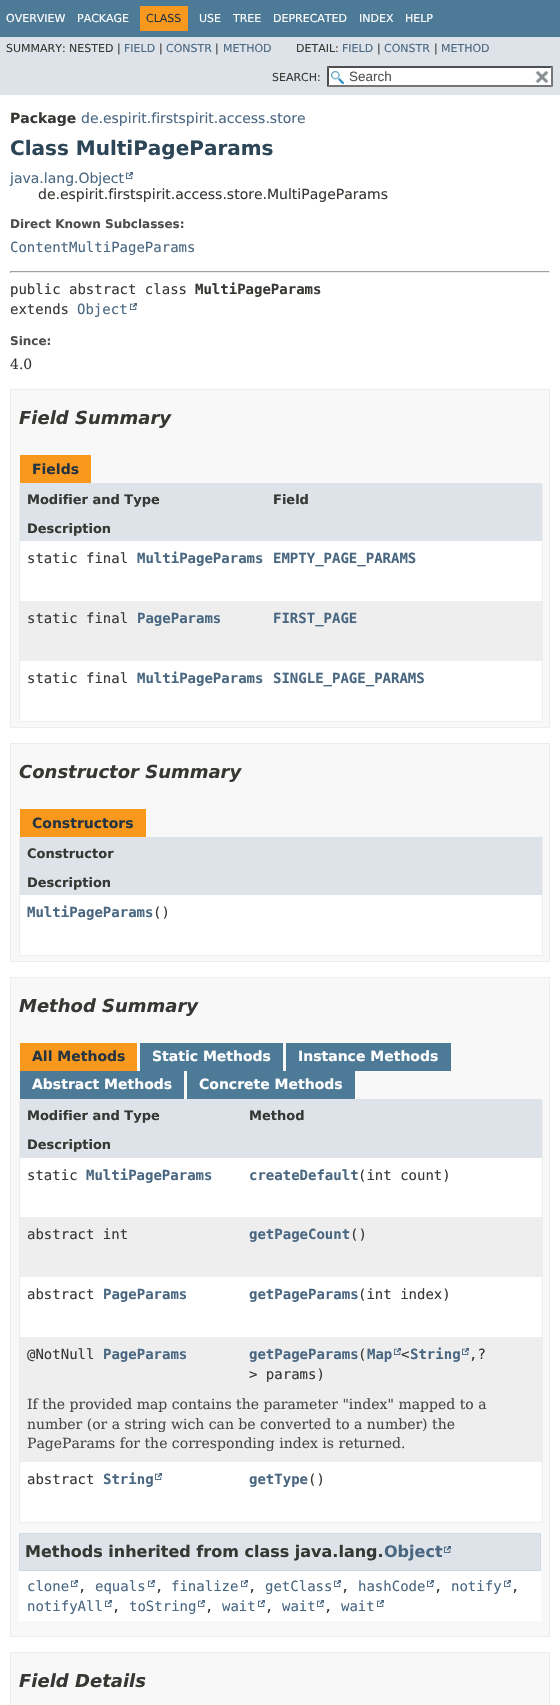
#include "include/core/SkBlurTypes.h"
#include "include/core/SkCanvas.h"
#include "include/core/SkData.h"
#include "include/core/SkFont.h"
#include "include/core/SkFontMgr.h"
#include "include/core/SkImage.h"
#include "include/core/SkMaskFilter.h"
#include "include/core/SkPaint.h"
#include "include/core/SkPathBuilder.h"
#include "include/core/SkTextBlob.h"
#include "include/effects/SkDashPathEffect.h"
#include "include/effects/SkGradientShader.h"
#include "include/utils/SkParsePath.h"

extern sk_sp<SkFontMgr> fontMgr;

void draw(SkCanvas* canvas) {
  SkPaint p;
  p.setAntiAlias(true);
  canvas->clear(SK_ColorWHITE);
  p.setColor(SkColorSetRGB(77, 122, 151));
  canvas->drawRect(SkRect::MakeLTRB(0, 0, 560, 37), p);
  p.setColor(SkColorSetRGB(248, 152, 29));
  canvas->drawRect(SkRect::MakeLTRB(140, 6, 188, 31), p);
  p.setColor(SkColorSetRGB(222, 227, 233));
  canvas->drawRect(SkRect::MakeLTRB(0, 37, 560, 95), p);
  p.setColor(SK_ColorWHITE);
  canvas->drawRect(SkRect::MakeLTRB(327, 66, 553, 87), p);
  canvas->drawImageRect(SkImages::DeferredFromEncodedData(SkData::MakeFromFileName("images/1.png")), SkRect::MakeLTRB(331, 71, 344, 84), SkSamplingOptions());
  p.setColor(SkColorSetRGB(79, 79, 79));
  canvas->drawPath(SkPathBuilder().moveTo(327, 66).lineTo(553, 66).lineTo(551, 68).lineTo(329, 68).close().detach(), p);
  p.setColor(SkColorSetRGB(118, 118, 118));
  canvas->drawPath(SkPathBuilder().moveTo(553, 66).lineTo(553, 87).lineTo(551, 85).lineTo(551, 68).close().detach(), p);
  canvas->drawPath(SkPathBuilder().moveTo(553, 87).lineTo(327, 87).lineTo(329, 85).lineTo(551, 85).close().detach(), p);
  p.setColor(SkColorSetRGB(79, 79, 79));
  canvas->drawPath(SkPathBuilder().moveTo(327, 87).lineTo(327, 66).lineTo(329, 68).lineTo(329, 85).close().detach(), p);
  canvas->drawImageRect(SkImages::DeferredFromEncodedData(SkData::MakeFromFileName("images/2.png")), SkRect::MakeLTRB(535, 71, 549, 83), SkSamplingOptions());
  canvas->drawImageRect(SkImages::DeferredFromEncodedData(SkData::MakeFromFileName("images/3.png")), SkRect::MakeLTRB(126, 172, 133, 179), SkSamplingOptions());
  p.setColor(SkColorSetRGB(159, 159, 159));
  canvas->drawRect(SkRect::MakeLTRB(10, 271, 550, 272), p);
  p.setColor(SkColorSetRGB(238, 238, 238));
  canvas->drawRect(SkRect::MakeLTRB(549, 271, 550, 273), p);
  canvas->drawRect(SkRect::MakeLTRB(10, 272, 550, 273), p);
  p.setColor(SkColorSetRGB(159, 159, 159));
  canvas->drawRect(SkRect::MakeLTRB(10, 271, 11, 273), p);
  canvas->drawImageRect(SkImages::DeferredFromEncodedData(SkData::MakeFromFileName("images/3.png")), SkRect::MakeLTRB(130, 303, 137, 310), SkSamplingOptions());
  p.setColor(SkColorSetRGB(248, 248, 248));
  canvas->drawRect(SkRect::MakeLTRB(10.5f, 389.5f, 549.5f, 727.5f), p);
  p.setStyle(SkPaint::kStroke_Style);
  p.setStrokeWidth(1);
  p.setColor(SkColorSetRGB(237, 237, 237));
  canvas->drawRect(SkRect::MakeLTRB(10.5f, 389.5f, 549.5f, 727.5f), p);
  p.setStyle(SkPaint::kFill_Style);
  p.setColor(SkColorSetRGB(248, 152, 29));
  canvas->drawRect(SkRect::MakeLTRB(20, 455, 91, 483), p);
  p.setColor(SkColorSetRGB(238, 238, 238));
  canvas->drawRect(SkRect::MakeLTRB(542, 483, 543, 722), p);
  canvas->drawRect(SkRect::MakeLTRB(19, 721, 543, 722), p);
  canvas->drawRect(SkRect::MakeLTRB(19, 483, 20, 722), p);
  p.setColor(SkColorSetRGB(222, 227, 233));
  canvas->drawRect(SkRect::MakeLTRB(20, 483, 542, 512), p);
  canvas->drawRect(SkRect::MakeLTRB(20, 512, 542, 541), p);
  p.setColor(SK_ColorWHITE);
  canvas->drawRect(SkRect::MakeLTRB(20, 541, 542, 572), p);
  canvas->drawRect(SkRect::MakeLTRB(20, 572, 542, 601), p);
  p.setColor(SkColorSetRGB(238, 238, 239));
  canvas->drawRect(SkRect::MakeLTRB(20, 601, 542, 632), p);
  canvas->drawRect(SkRect::MakeLTRB(20, 632, 542, 661), p);
  p.setColor(SK_ColorWHITE);
  canvas->drawRect(SkRect::MakeLTRB(20, 661, 542, 691), p);
  canvas->drawRect(SkRect::MakeLTRB(20, 691, 542, 721), p);
  p.setColor(SkColorSetRGB(248, 248, 248));
  canvas->drawRect(SkRect::MakeLTRB(10.5f, 743.5f, 549.5f, 961.5f), p);
  p.setStyle(SkPaint::kStroke_Style);
  p.setColor(SkColorSetRGB(237, 237, 237));
  canvas->drawRect(SkRect::MakeLTRB(10.5f, 743.5f, 549.5f, 961.5f), p);
  p.setStyle(SkPaint::kFill_Style);
  p.setColor(SkColorSetRGB(248, 152, 29));
  canvas->drawRect(SkRect::MakeLTRB(20, 809, 146, 837), p);
  p.setColor(SkColorSetRGB(238, 238, 238));
  canvas->drawRect(SkRect::MakeLTRB(542, 837, 543, 956), p);
  canvas->drawRect(SkRect::MakeLTRB(19, 955, 543, 956), p);
  canvas->drawRect(SkRect::MakeLTRB(19, 837, 20, 956), p);
  p.setColor(SkColorSetRGB(222, 227, 233));
  canvas->drawRect(SkRect::MakeLTRB(20, 837, 542, 895), p);
  p.setColor(SK_ColorWHITE);
  canvas->drawRect(SkRect::MakeLTRB(20, 895, 542, 955), p);
  p.setColor(SkColorSetRGB(248, 248, 248));
  canvas->drawRect(SkRect::MakeLTRB(10.5f, 977.5f, 549.5f, 1636.5f), p);
  p.setStyle(SkPaint::kStroke_Style);
  p.setColor(SkColorSetRGB(237, 237, 237));
  canvas->drawRect(SkRect::MakeLTRB(10.5f, 977.5f, 549.5f, 1636.5f), p);
  p.setStyle(SkPaint::kFill_Style);
  p.setColor(SkColorSetRGB(248, 152, 29));
  canvas->drawRect(SkRect::MakeLTRB(20, 1043, 137, 1071), p);
  p.setColor(SkColorSetRGB(77, 122, 151));
  canvas->drawRect(SkRect::MakeLTRB(140, 1043, 283, 1071), p);
  canvas->drawRect(SkRect::MakeLTRB(286, 1043, 451, 1071), p);
  canvas->drawRect(SkRect::MakeLTRB(20, 1071, 184, 1099), p);
  canvas->drawRect(SkRect::MakeLTRB(187, 1071, 355, 1099), p);
  p.setColor(SkColorSetRGB(238, 238, 238));
  canvas->drawRect(SkRect::MakeLTRB(542, 1099, 543, 1523), p);
  canvas->drawRect(SkRect::MakeLTRB(19, 1522, 543, 1523), p);
  canvas->drawRect(SkRect::MakeLTRB(19, 1099, 20, 1523), p);
  p.setColor(SkColorSetRGB(222, 227, 233));
  canvas->drawRect(SkRect::MakeLTRB(20, 1099, 542, 1128), p);
  canvas->drawRect(SkRect::MakeLTRB(20, 1128, 542, 1158), p);
  p.setColor(SK_ColorWHITE);
  canvas->drawRect(SkRect::MakeLTRB(20, 1158, 542, 1188), p);
  canvas->drawRect(SkRect::MakeLTRB(20, 1188, 542, 1217), p);
  p.setColor(SkColorSetRGB(238, 238, 239));
  canvas->drawRect(SkRect::MakeLTRB(20, 1217, 542, 1248), p);
  canvas->drawRect(SkRect::MakeLTRB(20, 1248, 542, 1277), p);
  p.setColor(SK_ColorWHITE);
  canvas->drawRect(SkRect::MakeLTRB(20, 1277, 542, 1308), p);
  canvas->drawRect(SkRect::MakeLTRB(20, 1308, 542, 1337), p);
  p.setColor(SkColorSetRGB(238, 238, 239));
  canvas->drawRect(SkRect::MakeLTRB(20, 1337, 542, 1387), p);
  canvas->drawImageRect(SkImages::DeferredFromEncodedData(SkData::MakeFromFileName("images/4.png")), SkRect::MakeLTRB(462, 1348, 469, 1355), SkSamplingOptions());
  canvas->drawImageRect(SkImages::DeferredFromEncodedData(SkData::MakeFromFileName("images/4.png")), SkRect::MakeLTRB(394, 1348, 401, 1355), SkSamplingOptions());
  canvas->drawRect(SkRect::MakeLTRB(20, 1387, 542, 1462), p);
  p.setColor(SK_ColorWHITE);
  canvas->drawRect(SkRect::MakeLTRB(20, 1462, 542, 1492), p);
  canvas->drawImageRect(SkImages::DeferredFromEncodedData(SkData::MakeFromFileName("images/3.png")), SkRect::MakeLTRB(155, 1473, 162, 1480), SkSamplingOptions());
  canvas->drawRect(SkRect::MakeLTRB(20, 1492, 542, 1522), p);
  canvas->drawRect(SkRect::MakeLTRB(19, 1571, 541, 1621), p);
  p.setColor(SkColorSetRGB(222, 227, 233));
  canvas->drawRect(SkRect::MakeLTRB(19.5f, 1533.5f, 540.5f, 1570.5f), p);
  p.setStyle(SkPaint::kStroke_Style);
  p.setColor(SkColorSetRGB(208, 217, 224));
  canvas->drawRect(SkRect::MakeLTRB(19.5f, 1533.5f, 540.5f, 1570.5f), p);
  canvas->drawImageRect(SkImages::DeferredFromEncodedData(SkData::MakeFromFileName("images/5.png")), SkRect::MakeLTRB(444, 1546, 451, 1553), SkSamplingOptions());
  canvas->drawImageRect(SkImages::DeferredFromEncodedData(SkData::MakeFromFileName("images/3.png")), SkRect::MakeLTRB(71, 1580, 78, 1587), SkSamplingOptions());
  canvas->drawImageRect(SkImages::DeferredFromEncodedData(SkData::MakeFromFileName("images/3.png")), SkRect::MakeLTRB(148, 1580, 155, 1587), SkSamplingOptions());
  canvas->drawImageRect(SkImages::DeferredFromEncodedData(SkData::MakeFromFileName("images/3.png")), SkRect::MakeLTRB(241, 1580, 248, 1587), SkSamplingOptions());
  canvas->drawImageRect(SkImages::DeferredFromEncodedData(SkData::MakeFromFileName("images/3.png")), SkRect::MakeLTRB(334, 1580, 341, 1587), SkSamplingOptions());
  canvas->drawImageRect(SkImages::DeferredFromEncodedData(SkData::MakeFromFileName("images/3.png")), SkRect::MakeLTRB(427, 1580, 434, 1587), SkSamplingOptions());
  canvas->drawImageRect(SkImages::DeferredFromEncodedData(SkData::MakeFromFileName("images/3.png")), SkRect::MakeLTRB(504, 1580, 511, 1587), SkSamplingOptions());
  canvas->drawImageRect(SkImages::DeferredFromEncodedData(SkData::MakeFromFileName("images/3.png")), SkRect::MakeLTRB(105, 1600, 112, 1607), SkSamplingOptions());
  canvas->drawImageRect(SkImages::DeferredFromEncodedData(SkData::MakeFromFileName("images/3.png")), SkRect::MakeLTRB(198, 1600, 205, 1607), SkSamplingOptions());
  canvas->drawImageRect(SkImages::DeferredFromEncodedData(SkData::MakeFromFileName("images/3.png")), SkRect::MakeLTRB(258, 1600, 265, 1607), SkSamplingOptions());
  canvas->drawImageRect(SkImages::DeferredFromEncodedData(SkData::MakeFromFileName("images/3.png")), SkRect::MakeLTRB(317, 1600, 324, 1607), SkSamplingOptions());
  canvas->drawImageRect(SkImages::DeferredFromEncodedData(SkData::MakeFromFileName("images/3.png")), SkRect::MakeLTRB(377, 1600, 384, 1607), SkSamplingOptions());
  p.setStyle(SkPaint::kFill_Style);
  p.setColor(SkColorSetRGB(248, 248, 248));
  canvas->drawRect(SkRect::MakeLTRB(10.5f, 1652.5f, 549.5f, 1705.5f), p);
  p.setStyle(SkPaint::kStroke_Style);
  p.setColor(SkColorSetRGB(237, 237, 237));
  canvas->drawRect(SkRect::MakeLTRB(10.5f, 1652.5f, 549.5f, 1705.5f), p);
  SkFont font1(fontMgr->matchFamilyStyle("DejaVu Sans", SkFontStyle::Normal()), 11);
  font1.setSubpixel(true);
  p.setStyle(SkPaint::kFill_Style);
  p.setColor(SK_ColorWHITE);
  canvas->drawString("OVERVIEW", 6, 22, font1, p);
  canvas->drawString("PACKAGE", 77, 22, font1, p);
  p.setColor(SkColorSetRGB(37, 52, 65));
  canvas->drawString("CLASS", 146, 22, font1, p);
  p.setColor(SK_ColorWHITE);
  canvas->drawString("USE", 199, 22, font1, p);
  canvas->drawString("TREE", 233, 22, font1, p);
  canvas->drawString("DEPRECATED", 273, 22, font1, p);
  canvas->drawString("INDEX", 359, 22, font1, p);
  canvas->drawString("HELP", 405, 22, font1, p);
  p.setColor(SkColorSetRGB(53, 56, 51));
  canvas->drawString("SUMMARY: NESTED |", 6, 52, font1, p);
  p.setColor(SkColorSetRGB(74, 103, 130));
  canvas->drawString("FIELD", 124, 52, font1, p);
  p.setColor(SkColorSetRGB(53, 56, 51));
  canvas->drawString("|", 159, 52, font1, p);
  p.setColor(SkColorSetRGB(74, 103, 130));
  canvas->drawString("CONSTR", 166, 52, font1, p);
  p.setColor(SkColorSetRGB(53, 56, 51));
  canvas->drawString("|", 215, 52, font1, p);
  p.setColor(SkColorSetRGB(74, 103, 130));
  canvas->drawString("METHOD", 223, 52, font1, p);
  p.setColor(SkColorSetRGB(53, 56, 51));
  canvas->drawString("DETAIL:", 296, 52, font1, p);
  p.setColor(SkColorSetRGB(74, 103, 130));
  canvas->drawString("FIELD", 342, 52, font1, p);
  p.setColor(SkColorSetRGB(53, 56, 51));
  canvas->drawString("|", 377, 52, font1, p);
  p.setColor(SkColorSetRGB(74, 103, 130));
  canvas->drawString("CONSTR", 384, 52, font1, p);
  p.setColor(SkColorSetRGB(53, 56, 51));
  canvas->drawString("|", 434, 52, font1, p);
  p.setColor(SkColorSetRGB(74, 103, 130));
  canvas->drawString("METHOD", 441, 52, font1, p);
  p.setColor(SkColorSetRGB(53, 56, 51));
  canvas->drawString("SEARCH:", 272, 81, font1, p);
  SkFont font2(fontMgr->matchFamilyStyle("Liberation Sans", SkFontStyle::Normal()), 13.5f);
  font2.setSubpixel(true);
  p.setColor(SkColorSetRGB(84, 84, 84));
  canvas->drawString("Search", 349, 81, font2, p);
  SkFont font3(fontMgr->matchFamilyStyle("DejaVu Sans", SkFontStyle::Bold()), 14);
  font3.setSubpixel(true);
  p.setColor(SkColorSetRGB(53, 56, 51));
  canvas->drawString("Package", 10, 123, font3, p);
  SkFont font4(fontMgr->matchFamilyStyle("DejaVu Sans", SkFontStyle::Normal()), 14);
  font4.setSubpixel(true);
  p.setColor(SkColorSetRGB(74, 103, 130));
  canvas->drawString("de.espirit.firstspirit.access.store", 81, 123, font4, p);
  SkFont font5(fontMgr->matchFamilyStyle("DejaVu Sans", SkFontStyle::Bold()), 20);
  font5.setSubpixel(true);
  p.setColor(SkColorSetRGB(44, 69, 87));
  canvas->drawString("Class MultiPageParams", 10, 155, font5, p);
  p.setColor(SkColorSetRGB(74, 103, 130));
  canvas->drawString("java.lang.Object", 10, 183, font4, p);
  p.setColor(SkColorSetRGB(53, 56, 51));
  canvas->drawString("de.espirit.firstspirit.access.store.MultiPageParams", 38, 199, font4, p);
  SkFont font6(fontMgr->matchFamilyStyle("DejaVu Sans", SkFontStyle::Bold()), 12);
  font6.setSubpixel(true);
  p.setColor(SkColorSetRGB(78, 78, 78));
  canvas->drawString("Direct Known Subclasses:", 10, 228, font6, p);
  SkFont font7(fontMgr->matchFamilyStyle("DejaVu Sans Mono", SkFontStyle::Normal()), 14);
  font7.setSubpixel(true);
  p.setColor(SkColorSetRGB(74, 103, 130));
  canvas->drawString("ContentMultiPageParams", 10, 252, font7, p);
  p.setColor(SkColorSetRGB(53, 56, 51));
  canvas->drawString("public abstract class", 10, 294, font7, p);
  SkFont font8(fontMgr->matchFamilyStyle("DejaVu Sans Mono", SkFontStyle::Bold()), 14);
  font8.setSubpixel(true);
  canvas->drawString("MultiPageParams", 195, 294, font8, p);
  canvas->drawString("extends", 10, 314, font7, p);
  p.setColor(SkColorSetRGB(74, 103, 130));
  canvas->drawString("Object", 77, 314, font7, p);
  p.setColor(SkColorSetRGB(78, 78, 78));
  canvas->drawString("Since:", 10, 345, font6, p);
  SkFont font9(fontMgr->matchFamilyStyle("DejaVu Serif", SkFontStyle::Normal()), 14);
  font9.setSubpixel(true);
  p.setColor(SkColorSetRGB(53, 56, 51));
  canvas->drawString("4.0", 10, 369, font9, p);
  SkFont font10(fontMgr->matchFamilyStyle("DejaVu Sans", SkFontStyle::BoldItalic()), 18);
  font10.setSubpixel(true);
  canvas->drawString("Field Summary", 19, 424, font10, p);
  p.setColor(SkColorSetRGB(37, 52, 65));
  canvas->drawString("Fields", 32, 474, font3, p);
  SkFont font11(fontMgr->matchFamilyStyle("DejaVu Sans", SkFontStyle::Bold()), 13);
  font11.setSubpixel(true);
  p.setColor(SkColorSetRGB(53, 56, 51));
  canvas->drawString("Modifier and Type", 27, 504, font11, p);
  canvas->drawString("Field", 273, 504, font11, p);
  canvas->drawString("Description", 27, 533, font11, p);
  canvas->drawString("static final", 27, 563, font7, p);
  p.setColor(SkColorSetRGB(74, 103, 130));
  canvas->drawString("MultiPageParams", 137, 563, font8, p);
  canvas->drawString("EMPTY_PAGE_PARAMS", 273, 563, font8, p);
  p.setColor(SkColorSetRGB(53, 56, 51));
  canvas->drawString("static final", 27, 623, font7, p);
  p.setColor(SkColorSetRGB(74, 103, 130));
  canvas->drawString("PageParams", 137, 623, font8, p);
  canvas->drawString("FIRST_PAGE", 273, 623, font8, p);
  p.setColor(SkColorSetRGB(53, 56, 51));
  canvas->drawString("static final", 27, 683, font7, p);
  p.setColor(SkColorSetRGB(74, 103, 130));
  canvas->drawString("MultiPageParams", 137, 683, font8, p);
  canvas->drawString("SINGLE_PAGE_PARAMS", 273, 683, font8, p);
  p.setColor(SkColorSetRGB(53, 56, 51));
  canvas->drawString("Constructor Summary", 19, 778, font10, p);
  p.setColor(SkColorSetRGB(37, 52, 65));
  canvas->drawString("Constructors", 32, 828, font3, p);
  p.setColor(SkColorSetRGB(53, 56, 51));
  canvas->drawString("Constructor", 27, 858, font11, p);
  canvas->drawString("Description", 27, 887, font11, p);
  p.setColor(SkColorSetRGB(74, 103, 130));
  canvas->drawString("MultiPageParams", 27, 917, font8, p);
  p.setColor(SkColorSetRGB(53, 56, 51));
  canvas->drawString("()", 153, 917, font7, p);
  canvas->drawString("Method Summary", 19, 1012, font10, p);
  p.setColor(SkColorSetRGB(37, 52, 65));
  canvas->drawString("All Methods", 32, 1061, font3, p);
  p.setColor(SK_ColorWHITE);
  canvas->drawString("Static Methods", 152, 1061, font3, p);
  canvas->drawString("Instance Methods", 298, 1061, font3, p);
  canvas->drawString("Abstract Methods", 32, 1089, font3, p);
  canvas->drawString("Concrete Methods", 199, 1089, font3, p);
  p.setColor(SkColorSetRGB(53, 56, 51));
  canvas->drawString("Modifier and Type", 27, 1120, font11, p);
  canvas->drawString("Method", 249, 1120, font11, p);
  canvas->drawString("Description", 27, 1149, font11, p);
  canvas->drawString("static", 27, 1180, font7, p);
  p.setColor(SkColorSetRGB(74, 103, 130));
  canvas->drawString("MultiPageParams", 86, 1180, font8, p);
  canvas->drawString("createDefault", 249, 1180, font8, p);
  p.setColor(SkColorSetRGB(53, 56, 51));
  canvas->drawString("(int count)", 358, 1180, font7, p);
  canvas->drawString("abstract int", 27, 1239, font7, p);
  p.setColor(SkColorSetRGB(74, 103, 130));
  canvas->drawString("getPageCount", 249, 1239, font8, p);
  p.setColor(SkColorSetRGB(53, 56, 51));
  canvas->drawString("()", 350, 1239, font7, p);
  canvas->drawString("abstract", 27, 1299, font7, p);
  p.setColor(SkColorSetRGB(74, 103, 130));
  canvas->drawString("PageParams", 103, 1299, font8, p);
  canvas->drawString("getPageParams", 249, 1299, font8, p);
  p.setColor(SkColorSetRGB(53, 56, 51));
  canvas->drawString("(int index)", 358, 1299, font7, p);
  canvas->drawString("@NotNull", 27, 1359, font7, p);
  p.setColor(SkColorSetRGB(74, 103, 130));
  canvas->drawString("PageParams", 103, 1359, font8, p);
  canvas->drawString("getPageParams Map", 249, 1359, font8, p);
  canvas->drawString("String", 410, 1359, font8, p);
  p.setColor(SkColorSetRGB(53, 56, 51));
  canvas->drawString("(", 358, 1359, font7, p);
  canvas->drawString("<", 401, 1359, font7, p);
  canvas->drawString(",?", 469, 1359, font7, p);
  canvas->drawString("> params)", 249, 1379, font7, p);
  p.setColor(SkColorSetRGB(71, 71, 71));
  canvas->drawString("If the provided map contains the parameter \"index\" mapped to a", 27, 1409, font9, p);
  canvas->drawString("number (or a string wich can be converted to a number) the", 27, 1429, font9, p);
  canvas->drawString("PageParams for the corresponding index is returned.", 27, 1448, font9, p);
  p.setColor(SkColorSetRGB(53, 56, 51));
  canvas->drawString("abstract", 27, 1484, font7, p);
  p.setColor(SkColorSetRGB(74, 103, 130));
  canvas->drawString("String", 103, 1484, font8, p);
  canvas->drawString("getType", 249, 1484, font8, p);
  p.setColor(SkColorSetRGB(53, 56, 51));
  canvas->drawString("()", 308, 1484, font7, p);
  SkFont font12(fontMgr->matchFamilyStyle("DejaVu Sans", SkFontStyle::Bold()), 16);
  font12.setSubpixel(true);
  canvas->drawString("Methods inherited from class java.lang.", 25, 1557, font12, p);
  p.setColor(SkColorSetRGB(74, 103, 130));
  canvas->drawString("Object", 384, 1557, font12, p);
  canvas->drawString("clone", 27, 1591, font7, p);
  p.setColor(SkColorSetRGB(53, 56, 51));
  canvas->drawString(",", 78, 1591, font7, p);
  p.setColor(SkColorSetRGB(74, 103, 130));
  canvas->drawString("equals", 95, 1591, font7, p);
  p.setColor(SkColorSetRGB(53, 56, 51));
  canvas->drawString(",", 155, 1591, font7, p);
  p.setColor(SkColorSetRGB(74, 103, 130));
  canvas->drawString("finalize", 171, 1591, font7, p);
  p.setColor(SkColorSetRGB(53, 56, 51));
  canvas->drawString(",", 248, 1591, font7, p);
  p.setColor(SkColorSetRGB(74, 103, 130));
  canvas->drawString("getClass", 265, 1591, font7, p);
  p.setColor(SkColorSetRGB(53, 56, 51));
  canvas->drawString(",", 341, 1591, font7, p);
  p.setColor(SkColorSetRGB(74, 103, 130));
  canvas->drawString("hashCode", 358, 1591, font7, p);
  p.setColor(SkColorSetRGB(53, 56, 51));
  canvas->drawString(",", 434, 1591, font7, p);
  p.setColor(SkColorSetRGB(74, 103, 130));
  canvas->drawString("notify", 451, 1591, font7, p);
  p.setColor(SkColorSetRGB(53, 56, 51));
  canvas->drawString(",", 511, 1591, font7, p);
  p.setColor(SkColorSetRGB(74, 103, 130));
  canvas->drawString("notifyAll", 27, 1611, font7, p);
  p.setColor(SkColorSetRGB(53, 56, 51));
  canvas->drawString(",", 112, 1611, font7, p);
  p.setColor(SkColorSetRGB(74, 103, 130));
  canvas->drawString("toString", 129, 1611, font7, p);
  p.setColor(SkColorSetRGB(53, 56, 51));
  canvas->drawString(",", 205, 1611, font7, p);
  p.setColor(SkColorSetRGB(74, 103, 130));
  canvas->drawString("wait", 222, 1611, font7, p);
  p.setColor(SkColorSetRGB(53, 56, 51));
  canvas->drawString(",", 265, 1611, font7, p);
  p.setColor(SkColorSetRGB(74, 103, 130));
  canvas->drawString("wait", 282, 1611, font7, p);
  p.setColor(SkColorSetRGB(53, 56, 51));
  canvas->drawString(",", 324, 1611, font7, p);
  p.setColor(SkColorSetRGB(74, 103, 130));
  canvas->drawString("wait", 341, 1611, font7, p);
  p.setColor(SkColorSetRGB(53, 56, 51));
  canvas->drawString("Field Details", 19, 1687, font10, p);
}
